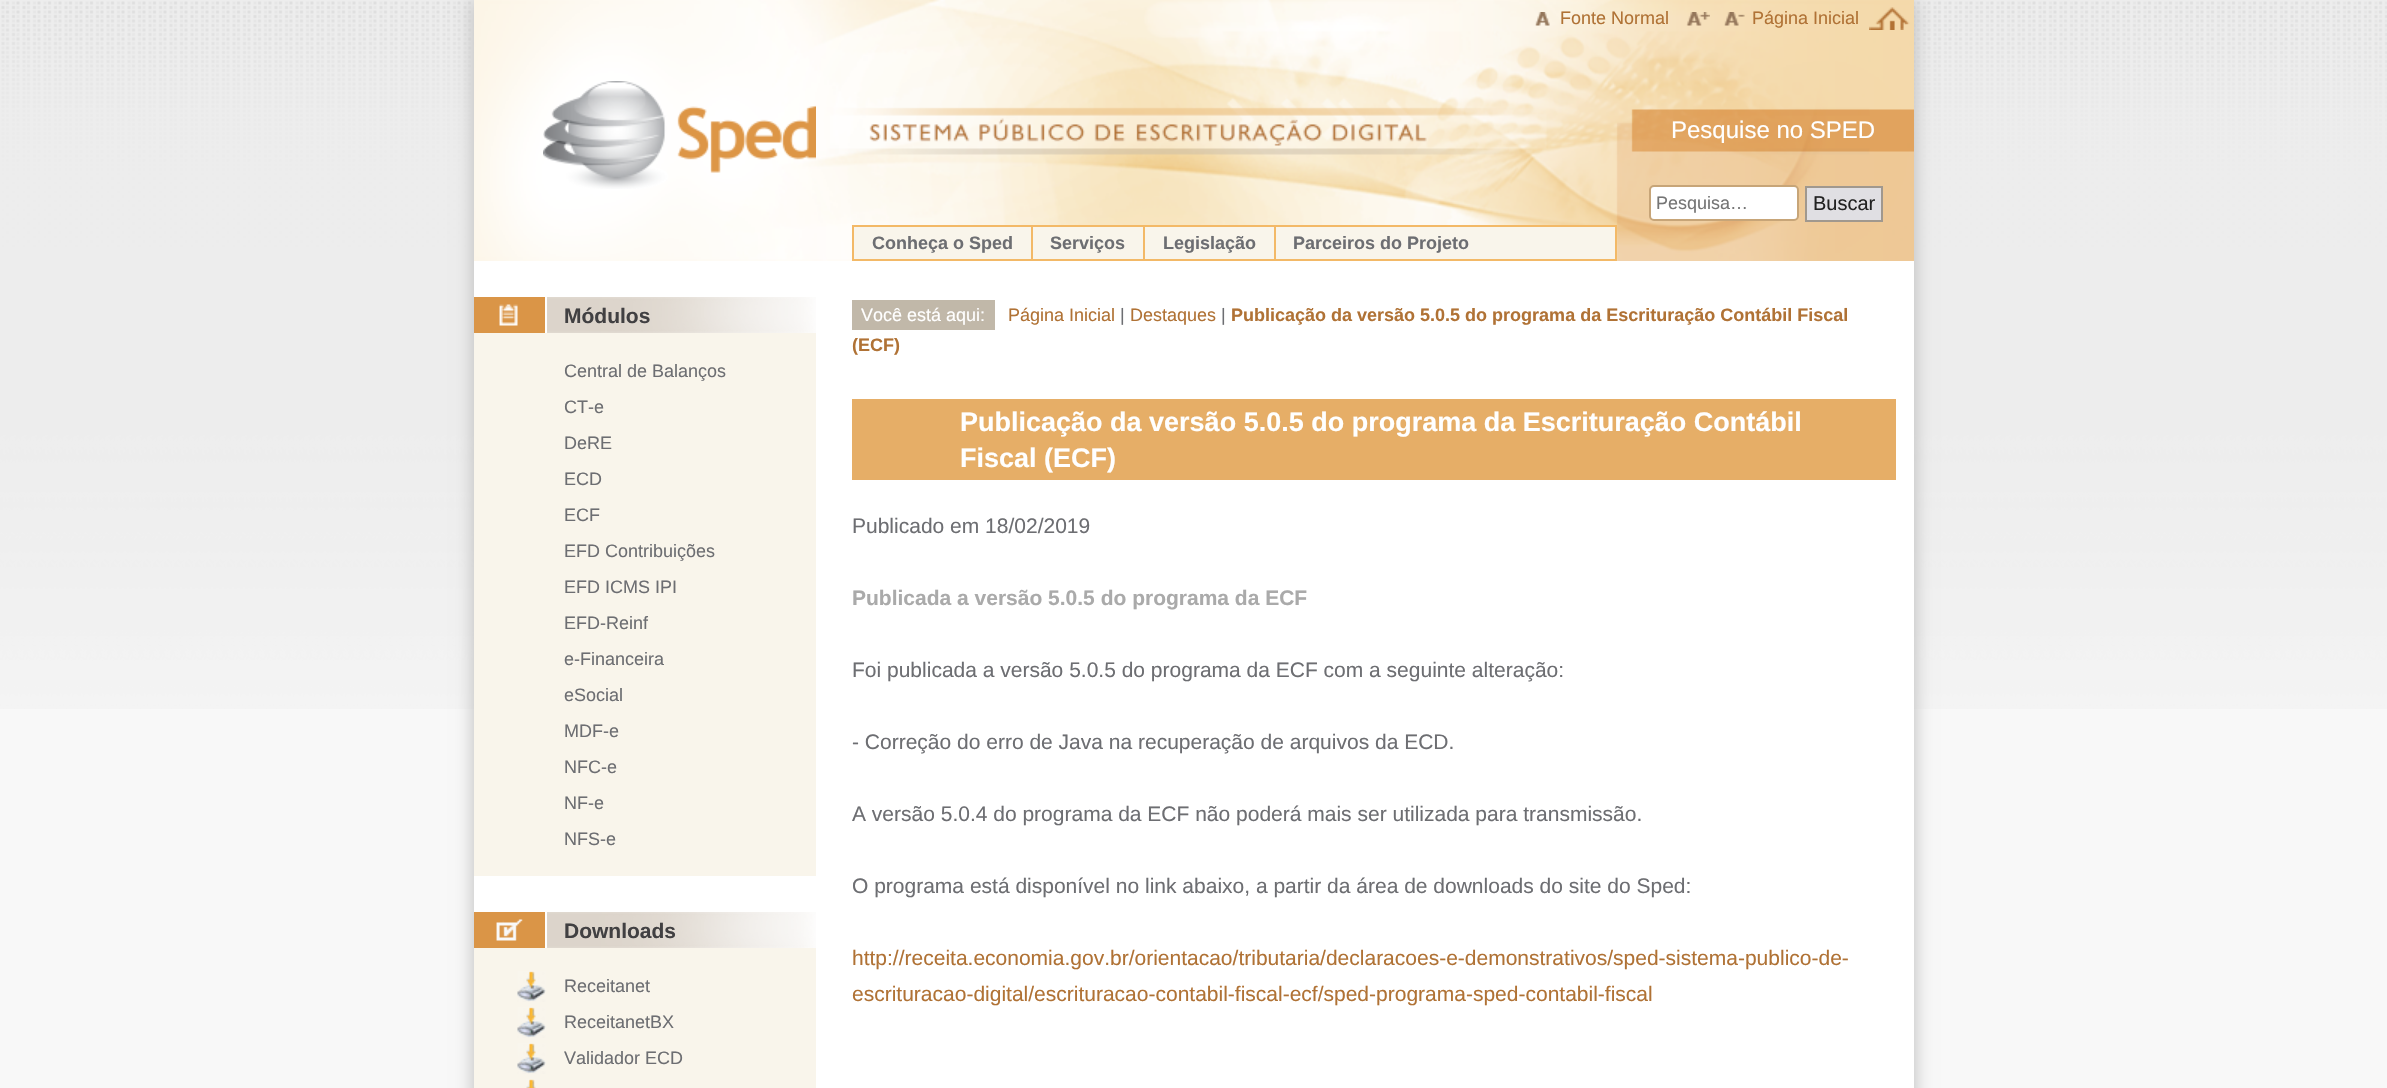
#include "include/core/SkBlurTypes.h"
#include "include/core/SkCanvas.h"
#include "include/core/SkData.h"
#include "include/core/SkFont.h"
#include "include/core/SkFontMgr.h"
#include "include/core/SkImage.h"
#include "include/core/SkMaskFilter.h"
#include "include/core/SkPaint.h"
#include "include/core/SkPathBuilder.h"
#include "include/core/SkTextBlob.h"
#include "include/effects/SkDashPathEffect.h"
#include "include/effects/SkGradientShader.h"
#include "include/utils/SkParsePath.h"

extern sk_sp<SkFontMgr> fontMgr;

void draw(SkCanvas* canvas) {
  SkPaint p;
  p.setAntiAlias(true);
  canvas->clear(SkColorSetRGB(248, 248, 248));
  canvas->drawImageRect(SkImages::DeferredFromEncodedData(SkData::MakeFromFileName("images/1.png")), SkRect::MakeLTRB(0, 0, 2387, 709), SkSamplingOptions());
  p.setColor(SkColorSetRGB(186, 186, 186));
  p.setMaskFilter(SkMaskFilter::MakeBlur(kNormal_SkBlurStyle, 9));
  canvas->drawRect(SkRect::MakeLTRB(474, 0, 1914, 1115), p);
  p.setMaskFilter(nullptr);
  canvas->drawImageRect(SkImages::DeferredFromEncodedData(SkData::MakeFromFileName("images/2.png")), SkRect::MakeLTRB(474, 0, 1914, 261), SkSamplingOptions());
  canvas->drawImageRect(SkImages::DeferredFromEncodedData(SkData::MakeFromFileName("images/3.png")), SkRect::MakeLTRB(1535, 12, 1550, 26), SkSamplingOptions());
  canvas->drawImageRect(SkImages::DeferredFromEncodedData(SkData::MakeFromFileName("images/4.png")), SkRect::MakeLTRB(1686, 12, 1710, 26), SkSamplingOptions());
  canvas->drawImageRect(SkImages::DeferredFromEncodedData(SkData::MakeFromFileName("images/5.png")), SkRect::MakeLTRB(1724, 12, 1745, 26), SkSamplingOptions());
  canvas->drawImageRect(SkImages::DeferredFromEncodedData(SkData::MakeFromFileName("images/6.png")), SkRect::MakeLTRB(1869, 7, 1910, 30), SkSamplingOptions());
  canvas->drawImageRect(SkImages::DeferredFromEncodedData(SkData::MakeFromFileName("images/7.png")), SkRect::MakeLTRB(543, 81, 816, 189), SkSamplingOptions());
  p.setColor(SK_ColorWHITE);
  canvas->drawRoundRect(SkRect::MakeLTRB(1650, 186, 1798, 220), 4, 4, p);
  p.setStyle(SkPaint::kStroke_Style);
  p.setStrokeWidth(2);
  p.setColor(SkColorSetRGB(199, 165, 120));
  canvas->drawRoundRect(SkRect::MakeLTRB(1650, 186, 1798, 220), 4, 4, p);
  p.setStyle(SkPaint::kFill_Style);
  p.setColor(SkColorSetRGB(224, 223, 227));
  canvas->drawRect(SkRect::MakeLTRB(1806, 187, 1882, 221), p);
  p.setStyle(SkPaint::kStroke_Style);
  p.setColor(SkColorSetRGB(160, 152, 142));
  canvas->drawRect(SkRect::MakeLTRB(1806, 187, 1882, 221), p);
  p.setStyle(SkPaint::kFill_Style);
  p.setColor(SkColorSetRGB(249, 245, 235));
  canvas->drawRect(SkRect::MakeLTRB(853, 226, 1616, 260), p);
  p.setStyle(SkPaint::kStroke_Style);
  p.setColor(SkColorSetRGB(243, 185, 103));
  canvas->drawRect(SkRect::MakeLTRB(853, 226, 1616, 260), p);
  p.setStyle(SkPaint::kFill_Style);
  canvas->drawRect(SkRect::MakeLTRB(1031, 227, 1033, 260), p);
  canvas->drawRect(SkRect::MakeLTRB(1143, 227, 1145, 260), p);
  canvas->drawRect(SkRect::MakeLTRB(1274, 227, 1276, 260), p);
  p.setColor(SK_ColorWHITE);
  canvas->drawRect(SkRect::MakeLTRB(474, 261, 1914, 1088), p);
  canvas->drawImageRect(SkImages::DeferredFromEncodedData(SkData::MakeFromFileName("images/8.png")), SkRect::MakeLTRB(547, 297, 816, 333), SkSamplingOptions());
  p.setColor(SkColorSetRGB(218, 149, 71));
  canvas->drawRect(SkRect::MakeLTRB(474, 297, 545, 333), p);
  canvas->drawImageRect(SkImages::DeferredFromEncodedData(SkData::MakeFromFileName("images/9.png")), SkRect::MakeLTRB(499, 304, 518, 326), SkSamplingOptions());
  p.setColor(SkColorSetRGB(249, 245, 235));
  canvas->drawRect(SkRect::MakeLTRB(474, 333, 816, 876), p);
  canvas->drawImageRect(SkImages::DeferredFromEncodedData(SkData::MakeFromFileName("images/8.png")), SkRect::MakeLTRB(547, 912, 816, 948), SkSamplingOptions());
  p.setColor(SkColorSetRGB(218, 149, 71));
  canvas->drawRect(SkRect::MakeLTRB(474, 912, 545, 948), p);
  canvas->drawImageRect(SkImages::DeferredFromEncodedData(SkData::MakeFromFileName("images/10.png")), SkRect::MakeLTRB(496, 919, 523, 941), SkSamplingOptions());
  p.setColor(SkColorSetRGB(249, 245, 235));
  canvas->drawRect(SkRect::MakeLTRB(474, 948, 816, 1088), p);
  canvas->drawImageRect(SkImages::DeferredFromEncodedData(SkData::MakeFromFileName("images/11.png")), SkRect::MakeLTRB(517, 971, 546, 1002), SkSamplingOptions());
  canvas->drawImageRect(SkImages::DeferredFromEncodedData(SkData::MakeFromFileName("images/11.png")), SkRect::MakeLTRB(517, 1007, 546, 1038), SkSamplingOptions());
  canvas->drawImageRect(SkImages::DeferredFromEncodedData(SkData::MakeFromFileName("images/11.png")), SkRect::MakeLTRB(517, 1043, 546, 1074), SkSamplingOptions());
  canvas->drawImageRect(SkImages::DeferredFromEncodedData(SkData::MakeFromFileName("images/12.png")), SkRect::MakeLTRB(526, 1079, 536, 1088), SkSamplingOptions());
  p.setColor(SkColorSetRGB(193, 184, 169));
  canvas->drawRect(SkRect::MakeLTRB(852, 300, 995, 330), p);
  p.setColor(SkColorSetRGB(230, 174, 103));
  canvas->drawRect(SkRect::MakeLTRB(852, 399, 1896, 480), p);
  SkFont font1(fontMgr->matchFamilyStyle("Liberation Sans", SkFontStyle::Normal()), 18);
  font1.setSubpixel(true);
  p.setColor(SkColorSetRGB(176, 114, 53));
  canvas->drawString("Fonte Normal", 1560, 24, font1, p);
  canvas->drawString("Página Inicial", 1752, 24, font1, p);
  SkFont font2(fontMgr->matchFamilyStyle("Liberation Sans", SkFontStyle::Normal()), 24);
  font2.setSubpixel(true);
  p.setColor(SK_ColorWHITE);
  canvas->drawString("Pesquise no SPED", 1671, 138, font2, p);
  p.setColor(SkColorSetRGB(117, 117, 117));
  canvas->drawString("Pesquisa…", 1656, 209, font1, p);
  SkFont font3(fontMgr->matchFamilyStyle("Liberation Sans", SkFontStyle::Normal()), 20);
  font3.setSubpixel(true);
  p.setColor(SkColorSetRGB(34, 34, 34));
  canvas->drawString("Buscar", 1813, 210, font3, p);
  SkFont font4(fontMgr->matchFamilyStyle("Liberation Sans", SkFontStyle::Bold()), 18);
  font4.setSubpixel(true);
  p.setColor(SkColorSetRGB(109, 110, 114));
  canvas->drawString("Conheça o Sped", 872, 249, font4, p);
  canvas->drawString("Serviços", 1050, 249, font4, p);
  canvas->drawString("Legislação", 1163, 249, font4, p);
  canvas->drawString("Parceiros do Projeto", 1293, 249, font4, p);
  SkFont font5(fontMgr->matchFamilyStyle("Liberation Sans", SkFontStyle::Bold()), 21);
  font5.setSubpixel(true);
  p.setColor(SkColorSetRGB(65, 64, 66));
  canvas->drawString("Módulos", 564, 323, font5, p);
  p.setColor(SkColorSetRGB(109, 110, 114));
  canvas->drawString("Central de Balanços", 564, 377, font1, p);
  canvas->drawString("CT-e", 564, 413, font1, p);
  canvas->drawString("DeRE", 564, 449, font1, p);
  canvas->drawString("ECD", 564, 485, font1, p);
  canvas->drawString("ECF", 564, 521, font1, p);
  canvas->drawString("EFD Contribuições", 564, 557, font1, p);
  canvas->drawString("EFD ICMS IPI", 564, 593, font1, p);
  canvas->drawString("EFD-Reinf", 564, 629, font1, p);
  canvas->drawString("e-Financeira", 564, 665, font1, p);
  canvas->drawString("eSocial", 564, 701, font1, p);
  canvas->drawString("MDF-e", 564, 737, font1, p);
  canvas->drawString("NFC-e", 564, 773, font1, p);
  canvas->drawString("NF-e", 564, 809, font1, p);
  canvas->drawString("NFS-e", 564, 845, font1, p);
  p.setColor(SkColorSetRGB(65, 64, 66));
  canvas->drawString("Downloads", 564, 938, font5, p);
  p.setColor(SkColorSetRGB(109, 110, 114));
  canvas->drawString("Receitanet", 564, 992, font1, p);
  canvas->drawString("ReceitanetBX", 564, 1028, font1, p);
  canvas->drawString("Validador ECD", 564, 1064, font1, p);
  p.setColor(SK_ColorWHITE);
  canvas->drawString("Você está aqui:", 861, 321, font1, p);
  p.setColor(SkColorSetRGB(176, 114, 53));
  canvas->drawString("Página Inicial", 1008, 321, font1, p);
  p.setColor(SkColorSetRGB(109, 110, 114));
  canvas->drawString("|", 1120, 321, font1, p);
  p.setColor(SkColorSetRGB(176, 114, 53));
  canvas->drawString("Destaques", 1130, 321, font1, p);
  p.setColor(SkColorSetRGB(109, 110, 114));
  canvas->drawString("|", 1221, 321, font1, p);
  p.setColor(SkColorSetRGB(176, 114, 53));
  canvas->drawString("Publicação da versão 5.0.5 do programa da Escrituração Contábil Fiscal", 1231, 321, font4, p);
  canvas->drawString("(ECF)", 852, 351, font4, p);
  SkFont font6(fontMgr->matchFamilyStyle("Liberation Sans", SkFontStyle::Bold()), 27);
  font6.setSubpixel(true);
  p.setColor(SK_ColorWHITE);
  canvas->drawString("Publicação da versão 5.0.5 do programa da Escrituração Contábil", 960, 431, font6, p);
  canvas->drawString("Fiscal (ECF)", 960, 467, font6, p);
  SkFont font7(fontMgr->matchFamilyStyle("Liberation Sans", SkFontStyle::Normal()), 21);
  font7.setSubpixel(true);
  p.setColor(SkColorSetRGB(109, 110, 114));
  canvas->drawString("Publicado em 18/02/2019", 852, 533, font7, p);
  p.setColor(SkColorSetRGB(170, 170, 170));
  canvas->drawString("Publicada a versão 5.0.5 do programa da ECF", 852, 605, font5, p);
  p.setColor(SkColorSetRGB(109, 110, 114));
  canvas->drawString("Foi publicada a versão 5.0.5 do programa da ECF com a seguinte alteração:", 852, 677, font7, p);
  canvas->drawString("- Correção do erro de Java na recuperação de arquivos da ECD.", 852, 749, font7, p);
  canvas->drawString("A versão 5.0.4 do programa da ECF não poderá mais ser utilizada para transmissão.", 852, 821, font7, p);
  canvas->drawString("O programa está disponível no link abaixo, a partir da área de downloads do site do Sped:", 852, 893, font7, p);
  p.setColor(SkColorSetRGB(176, 114, 53));
  canvas->drawString("http://receita.economia.gov.br/orientacao/tributaria/declaracoes-e-demonstrativos/sped-sistema-publico-de-", 852, 965, font7, p);
  canvas->drawString("escrituracao-digital/escrituracao-contabil-fiscal-ecf/sped-programa-sped-contabil-fiscal", 852, 1001, font7, p);
}
